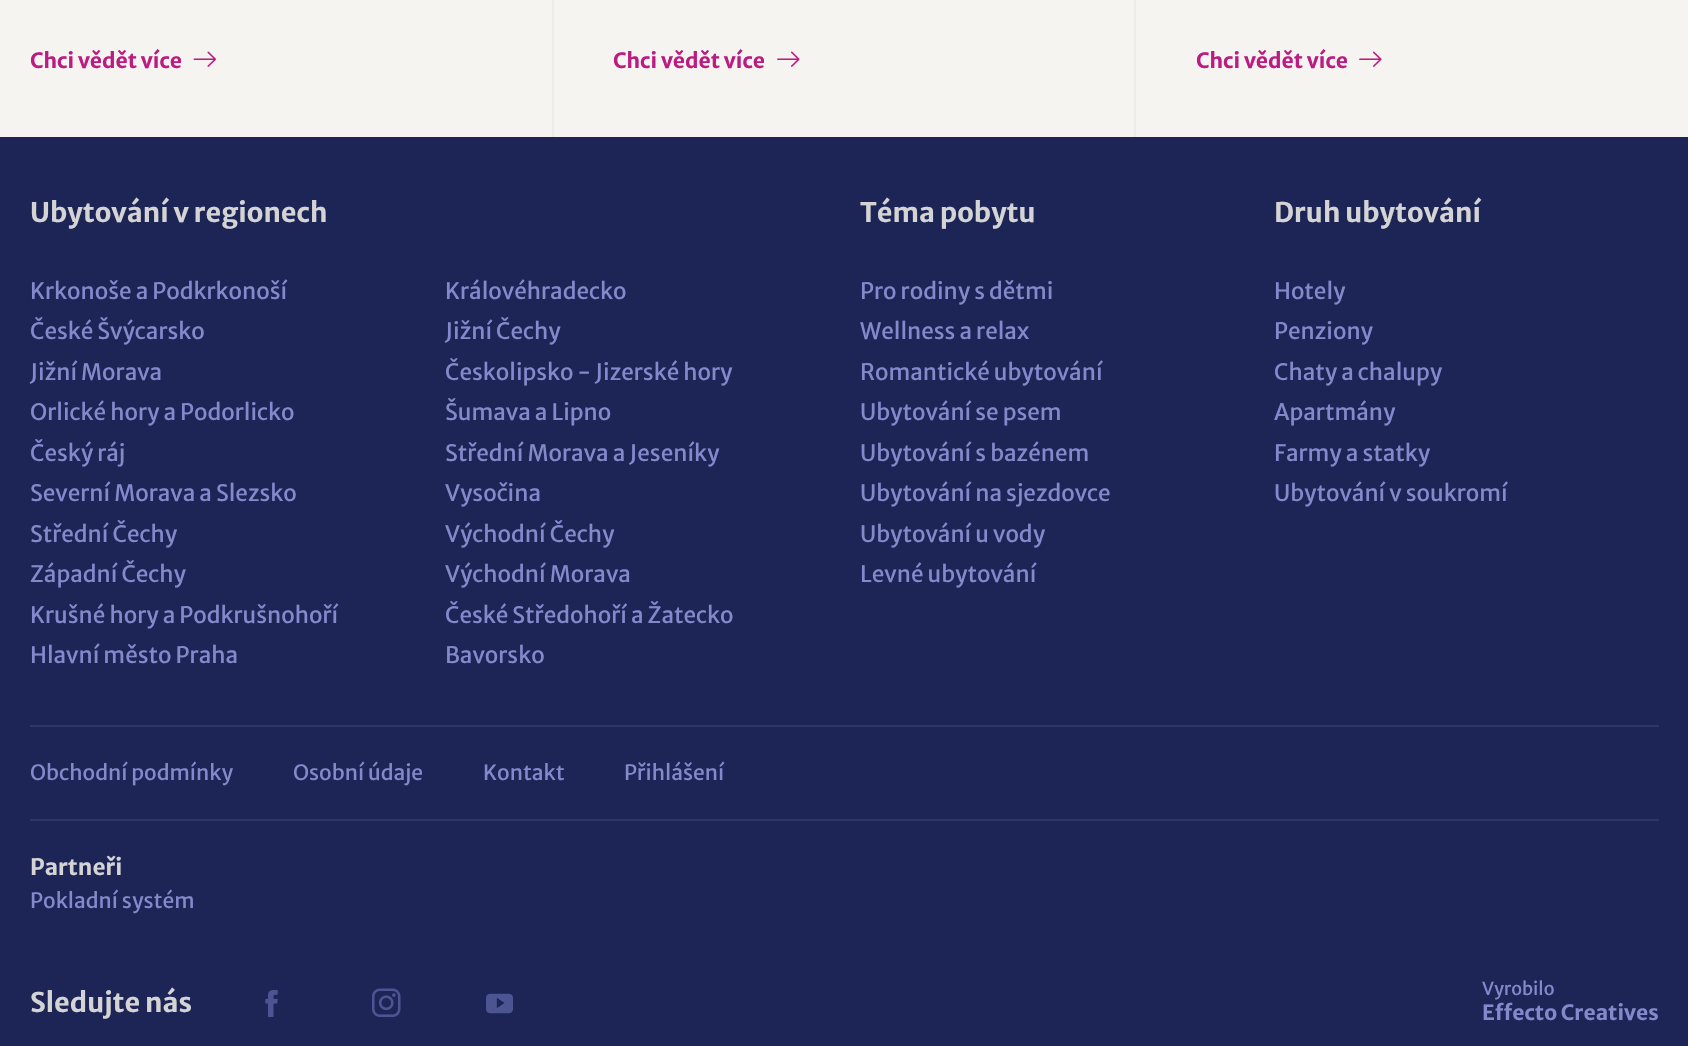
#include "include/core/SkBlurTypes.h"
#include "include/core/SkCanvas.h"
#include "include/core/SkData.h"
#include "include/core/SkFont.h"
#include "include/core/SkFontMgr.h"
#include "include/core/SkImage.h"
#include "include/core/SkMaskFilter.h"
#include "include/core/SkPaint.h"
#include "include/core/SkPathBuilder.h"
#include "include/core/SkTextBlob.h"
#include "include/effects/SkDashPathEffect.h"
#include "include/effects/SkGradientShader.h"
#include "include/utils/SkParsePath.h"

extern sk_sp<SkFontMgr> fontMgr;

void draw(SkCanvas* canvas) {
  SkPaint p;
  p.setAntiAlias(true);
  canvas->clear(SkColorSetRGB(245, 244, 241));
  p.setColor(SkColorSetRGB(236, 236, 236));
  canvas->drawRect(SkRect::MakeLTRB(552, 0, 554, 137), p);
  canvas->drawImageRect(SkImages::DeferredFromEncodedData(SkData::MakeFromFileName("images/1.png")), SkRect::MakeLTRB(193, 51, 217, 67), SkSamplingOptions());
  canvas->drawRect(SkRect::MakeLTRB(1134, 0, 1136, 137), p);
  canvas->drawImageRect(SkImages::DeferredFromEncodedData(SkData::MakeFromFileName("images/2.png")), SkRect::MakeLTRB(777, 51, 800, 67), SkSamplingOptions());
  canvas->drawImageRect(SkImages::DeferredFromEncodedData(SkData::MakeFromFileName("images/2.png")), SkRect::MakeLTRB(1359, 51, 1382, 67), SkSamplingOptions());
  p.setColor(SkColorSetRGB(29, 37, 87));
  canvas->drawRect(SkRect::MakeLTRB(0, 137, 1688, 1046), p);
  p.setColor(SkColorSetRGB(45, 54, 108));
  canvas->drawRect(SkRect::MakeLTRB(30, 725, 1659, 727), p);
  canvas->drawRect(SkRect::MakeLTRB(30, 819, 1659, 821), p);
  canvas->drawImageRect(SkImages::DeferredFromEncodedData(SkData::MakeFromFileName("images/3.png")), SkRect::MakeLTRB(265, 990, 278, 1017), SkSamplingOptions());
  canvas->drawImageRect(SkImages::DeferredFromEncodedData(SkData::MakeFromFileName("images/4.png")), SkRect::MakeLTRB(372, 988, 401, 1017), SkSamplingOptions());
  canvas->drawImageRect(SkImages::DeferredFromEncodedData(SkData::MakeFromFileName("images/5.png")), SkRect::MakeLTRB(486, 993, 513, 1014), SkSamplingOptions());
  SkFont font1(fontMgr->matchFamilyStyle("Merriweather Sans", SkFontStyle::Bold()), 21);
  font1.setSubpixel(true);
  p.setColor(SkColorSetRGB(188, 28, 130));
  canvas->drawString("Chci vědět více", 30, 68, font1, p);
  canvas->drawString("Chci vědět více", 613, 68, font1, p);
  canvas->drawString("Chci vědět více", 1196, 68, font1, p);
  SkFont font2(fontMgr->matchFamilyStyle("Merriweather Sans", SkFontStyle::Bold()), 27);
  font2.setSubpixel(true);
  p.setColor(SkColorSetRGB(212, 212, 212));
  canvas->drawString("Ubytování v regionech", 30, 222, font2, p);
  SkFont font3(fontMgr->matchFamilyStyle("Merriweather Sans", SkFontStyle::Normal()), 22.5f);
  font3.setSubpixel(true);
  p.setColor(SkColorSetRGB(132, 137, 204));
  canvas->drawString("Krkonoše a Podkrkonoší", 30, 299, font3, p);
  canvas->drawString("České Švýcarsko", 30, 339, font3, p);
  canvas->drawString("Jižní Morava", 30, 380, font3, p);
  canvas->drawString("Orlické hory a Podorlicko", 30, 420, font3, p);
  canvas->drawString("Český ráj", 30, 461, font3, p);
  canvas->drawString("Severní Morava a Slezsko", 30, 501, font3, p);
  canvas->drawString("Střední Čechy", 30, 542, font3, p);
  canvas->drawString("Západní Čechy", 30, 582, font3, p);
  canvas->drawString("Krušné hory a Podkrušnohoří", 30, 623, font3, p);
  canvas->drawString("Hlavní město Praha", 30, 663, font3, p);
  canvas->drawString("Královéhradecko", 445, 299, font3, p);
  canvas->drawString("Jižní Čechy", 445, 339, font3, p);
  canvas->drawString("Českolipsko - Jizerské hory", 445, 380, font3, p);
  canvas->drawString("Šumava a Lipno", 445, 420, font3, p);
  canvas->drawString("Střední Morava a Jeseníky", 445, 461, font3, p);
  canvas->drawString("Vysočina", 445, 501, font3, p);
  canvas->drawString("Východní Čechy", 445, 542, font3, p);
  canvas->drawString("Východní Morava", 445, 582, font3, p);
  canvas->drawString("České Středohoří a Žatecko", 445, 623, font3, p);
  canvas->drawString("Bavorsko", 445, 663, font3, p);
  p.setColor(SkColorSetRGB(212, 212, 212));
  canvas->drawString("Téma pobytu", 860, 222, font2, p);
  p.setColor(SkColorSetRGB(132, 137, 204));
  canvas->drawString("Pro rodiny s dětmi", 860, 299, font3, p);
  canvas->drawString("Wellness a relax", 860, 339, font3, p);
  canvas->drawString("Romantické ubytování", 860, 380, font3, p);
  canvas->drawString("Ubytování se psem", 860, 420, font3, p);
  canvas->drawString("Ubytování s bazénem", 860, 461, font3, p);
  canvas->drawString("Ubytování na sjezdovce", 860, 501, font3, p);
  canvas->drawString("Ubytování u vody", 860, 542, font3, p);
  canvas->drawString("Levné ubytování", 860, 582, font3, p);
  p.setColor(SkColorSetRGB(212, 212, 212));
  canvas->drawString("Druh ubytování", 1274, 222, font2, p);
  p.setColor(SkColorSetRGB(132, 137, 204));
  canvas->drawString("Hotely", 1274, 299, font3, p);
  canvas->drawString("Penziony", 1274, 339, font3, p);
  canvas->drawString("Chaty a chalupy", 1274, 380, font3, p);
  canvas->drawString("Apartmány", 1274, 420, font3, p);
  canvas->drawString("Farmy a statky", 1274, 461, font3, p);
  canvas->drawString("Ubytování v soukromí", 1274, 501, font3, p);
  SkFont font4(fontMgr->matchFamilyStyle("Merriweather Sans", SkFontStyle::Normal()), 21);
  font4.setSubpixel(true);
  canvas->drawString("Obchodní podmínky", 30, 780, font4, p);
  canvas->drawString("Osobní údaje", 293, 780, font4, p);
  canvas->drawString("Kontakt", 483, 780, font4, p);
  canvas->drawString("Přihlášení", 624, 780, font4, p);
  SkFont font5(fontMgr->matchFamilyStyle("Merriweather Sans", SkFontStyle::Bold()), 22.5f);
  font5.setSubpixel(true);
  p.setColor(SkColorSetRGB(212, 212, 212));
  canvas->drawString("Partneři", 30, 875, font5, p);
  p.setColor(SkColorSetRGB(132, 137, 204));
  canvas->drawString("Pokladní systém", 30, 908, font4, p);
  p.setColor(SkColorSetRGB(212, 212, 212));
  canvas->drawString("Sledujte nás", 30, 1012, font2, p);
  SkFont font6(fontMgr->matchFamilyStyle("Merriweather Sans", SkFontStyle::Normal()), 18);
  font6.setSubpixel(true);
  p.setColor(SkColorSetRGB(132, 137, 204));
  canvas->drawString("Vyrobilo", 1482, 995, font6, p);
  canvas->drawString("Effecto Creatives", 1482, 1020, font1, p);
}
